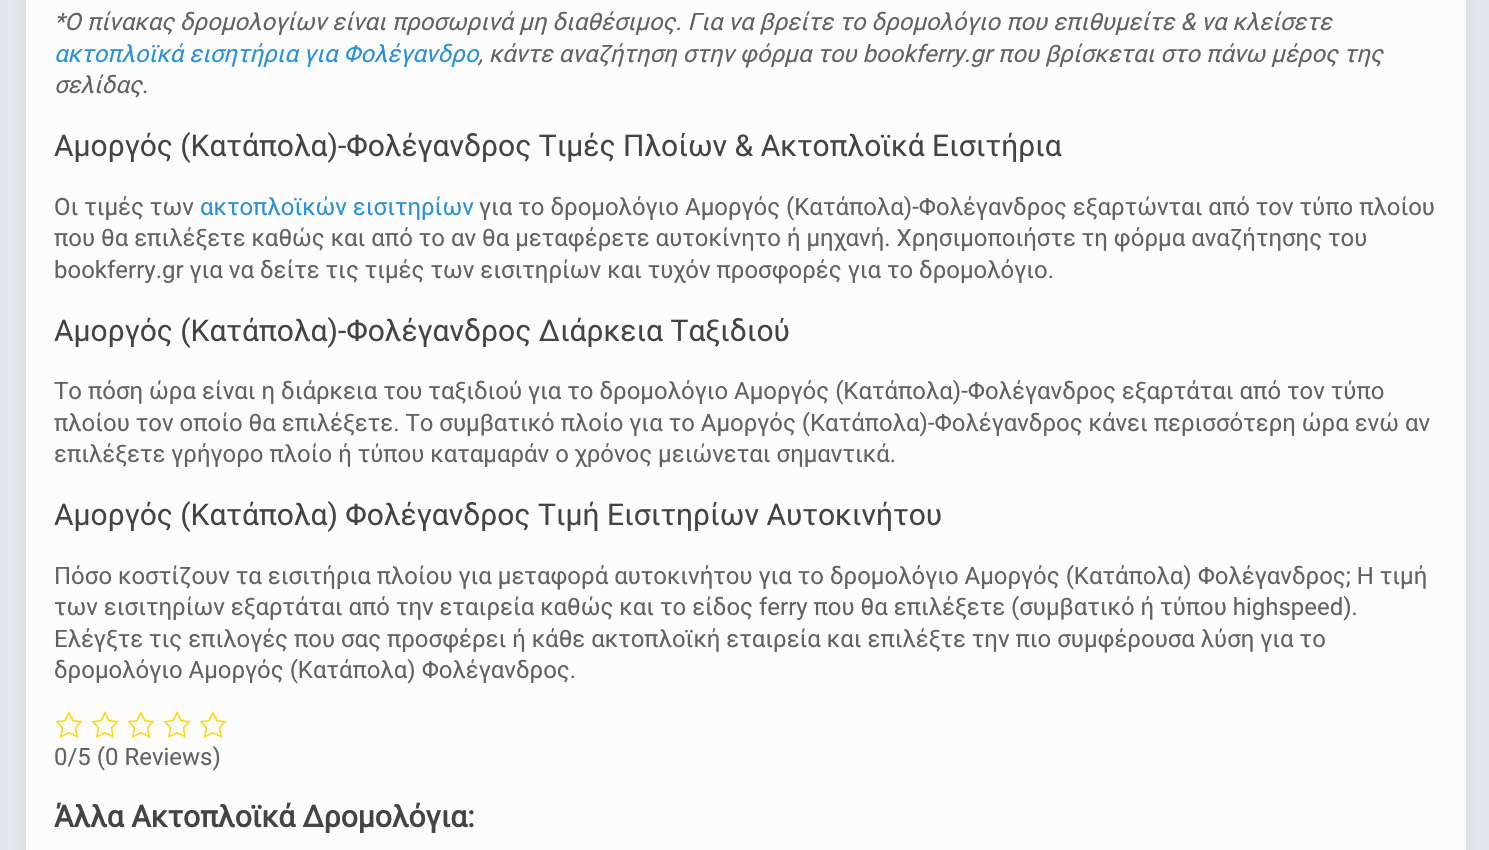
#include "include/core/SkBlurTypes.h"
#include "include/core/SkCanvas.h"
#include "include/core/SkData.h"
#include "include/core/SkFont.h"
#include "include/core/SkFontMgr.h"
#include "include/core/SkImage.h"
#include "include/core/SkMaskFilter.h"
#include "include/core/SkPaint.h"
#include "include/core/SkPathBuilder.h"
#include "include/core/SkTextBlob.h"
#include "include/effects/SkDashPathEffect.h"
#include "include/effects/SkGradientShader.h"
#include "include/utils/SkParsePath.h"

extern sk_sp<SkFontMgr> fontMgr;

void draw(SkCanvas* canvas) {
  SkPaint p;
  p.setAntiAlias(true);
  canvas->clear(SkColorSetRGB(226, 234, 239));
  p.setColor(SkColorSetARGB(15, 0, 0, 0));
  p.setMaskFilter(SkMaskFilter::MakeBlur(kNormal_SkBlurStyle, 11));
  canvas->drawRect(SkRect::MakeLTRB(26, -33, 1466, 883), p);
  p.setMaskFilter(nullptr);
  p.setColor(SkColorSetRGB(252, 252, 252));
  canvas->drawRect(SkRect::MakeLTRB(26, 0, 1466, 850), p);
  canvas->drawImageRect(SkImages::DeferredFromEncodedData(SkData::MakeFromFileName("images/1.png")), SkRect::MakeLTRB(55, 711, 83, 738), SkSamplingOptions());
  canvas->drawImageRect(SkImages::DeferredFromEncodedData(SkData::MakeFromFileName("images/1.png")), SkRect::MakeLTRB(91, 711, 119, 738), SkSamplingOptions());
  canvas->drawImageRect(SkImages::DeferredFromEncodedData(SkData::MakeFromFileName("images/1.png")), SkRect::MakeLTRB(127, 711, 155, 738), SkSamplingOptions());
  canvas->drawImageRect(SkImages::DeferredFromEncodedData(SkData::MakeFromFileName("images/1.png")), SkRect::MakeLTRB(163, 711, 191, 738), SkSamplingOptions());
  canvas->drawImageRect(SkImages::DeferredFromEncodedData(SkData::MakeFromFileName("images/1.png")), SkRect::MakeLTRB(199, 711, 227, 738), SkSamplingOptions());
  SkFont font1(fontMgr->matchFamilyStyle("Roboto", SkFontStyle::Italic()), 24);
  font1.setSubpixel(true);
  p.setColor(SkColorSetRGB(98, 98, 98));
  canvas->drawString("*Ο πίνακας δρομολογίων είναι προσωρινά μη διαθέσιμος. Για να βρείτε το δρομολόγιο που επιθυμείτε & να κλείσετε", 54, 30, font1, p);
  p.setColor(SkColorSetRGB(41, 145, 214));
  canvas->drawString("ακτοπλοϊκά εισητήρια για Φολέγανδρο", 54, 62, font1, p);
  p.setColor(SkColorSetRGB(98, 98, 98));
  canvas->drawString(", κάντε αναζήτηση στην φόρμα του bookferry.gr που βρίσκεται στο πάνω μέρος της", 478, 62, font1, p);
  canvas->drawString("σελίδας.", 54, 93, font1, p);
  SkFont font2(fontMgr->matchFamilyStyle("Roboto", SkFontStyle::Normal()), 30);
  font2.setSubpixel(true);
  p.setColor(SkColorSetRGB(68, 68, 68));
  canvas->drawString("Αμοργός (Κατάπολα)-Φολέγανδρος Τιμές Πλοίων & Ακτοπλοϊκά Εισιτήρια", 54, 156, font2, p);
  SkFont font3(fontMgr->matchFamilyStyle("Roboto", SkFontStyle::Normal()), 24);
  font3.setSubpixel(true);
  p.setColor(SkColorSetRGB(98, 98, 98));
  canvas->drawString("Οι τιμές των", 54, 215, font3, p);
  p.setColor(SkColorSetRGB(41, 145, 214));
  canvas->drawString("ακτοπλοϊκών εισιτηρίων", 200, 215, font3, p);
  p.setColor(SkColorSetRGB(98, 98, 98));
  canvas->drawString("για το δρομολόγιο Αμοργός (Κατάπολα)-Φολέγανδρος εξαρτώνται από τον τύπο πλοίου", 479, 215, font3, p);
  canvas->drawString("που θα επιλέξετε καθώς και από το αν θα μεταφέρετε αυτοκίνητο ή μηχανή. Χρησιμοποιήστε τη φόρμα αναζήτησης του", 54, 246, font3, p);
  canvas->drawString("bookferry.gr για να δείτε τις τιμές των εισιτηρίων και τυχόν προσφορές για το δρομολόγιο.", 54, 278, font3, p);
  p.setColor(SkColorSetRGB(68, 68, 68));
  canvas->drawString("Αμοργός (Κατάπολα)-Φολέγανδρος Διάρκεια Ταξιδιού", 54, 341, font2, p);
  p.setColor(SkColorSetRGB(98, 98, 98));
  canvas->drawString("Το πόση ώρα είναι η διάρκεια του ταξιδιού για το δρομολόγιο Αμοργός (Κατάπολα)-Φολέγανδρος εξαρτάται από τον τύπο", 54, 399, font3, p);
  canvas->drawString("πλοίου τον οποίο θα επιλέξετε. Το συμβατικό πλοίο για το Αμοργός (Κατάπολα)-Φολέγανδρος κάνει περισσότερη ώρα ενώ αν", 54, 431, font3, p);
  canvas->drawString("επιλέξετε γρήγορο πλοίο ή τύπου καταμαράν ο χρόνος μειώνεται σημαντικά.", 54, 462, font3, p);
  p.setColor(SkColorSetRGB(68, 68, 68));
  canvas->drawString("Αμοργός (Κατάπολα) Φολέγανδρος Τιμή Εισιτηρίων Αυτοκινήτου", 54, 525, font2, p);
  p.setColor(SkColorSetRGB(98, 98, 98));
  canvas->drawString("Πόσο κοστίζουν τα εισιτήρια πλοίου για μεταφορά αυτοκινήτου για το δρομολόγιο Αμοργός (Κατάπολα) Φολέγανδρος; Η τιμή", 54, 584, font3, p);
  canvas->drawString("των εισιτηρίων εξαρτάται από την εταιρεία καθώς και το είδος ferry που θα επιλέξετε (συμβατικό ή τύπου highspeed).", 54, 615, font3, p);
  canvas->drawString("Ελέγξτε τις επιλογές που σας προσφέρει ή κάθε ακτοπλοϊκή εταιρεία και επιλέξτε την πιο συμφέρουσα λύση για το", 54, 647, font3, p);
  canvas->drawString("δρομολόγιο Αμοργός (Κατάπολα) Φολέγανδρος.", 54, 678, font3, p);
  canvas->drawString("0/5 (0 Reviews)", 54, 765, font3, p);
  SkFont font4(fontMgr->matchFamilyStyle("Roboto", SkFontStyle::Bold()), 30);
  font4.setSubpixel(true);
  p.setColor(SkColorSetRGB(68, 68, 68));
  canvas->drawString("Άλλα Ακτοπλοϊκά Δρομολόγια:", 54, 827, font4, p);
}
